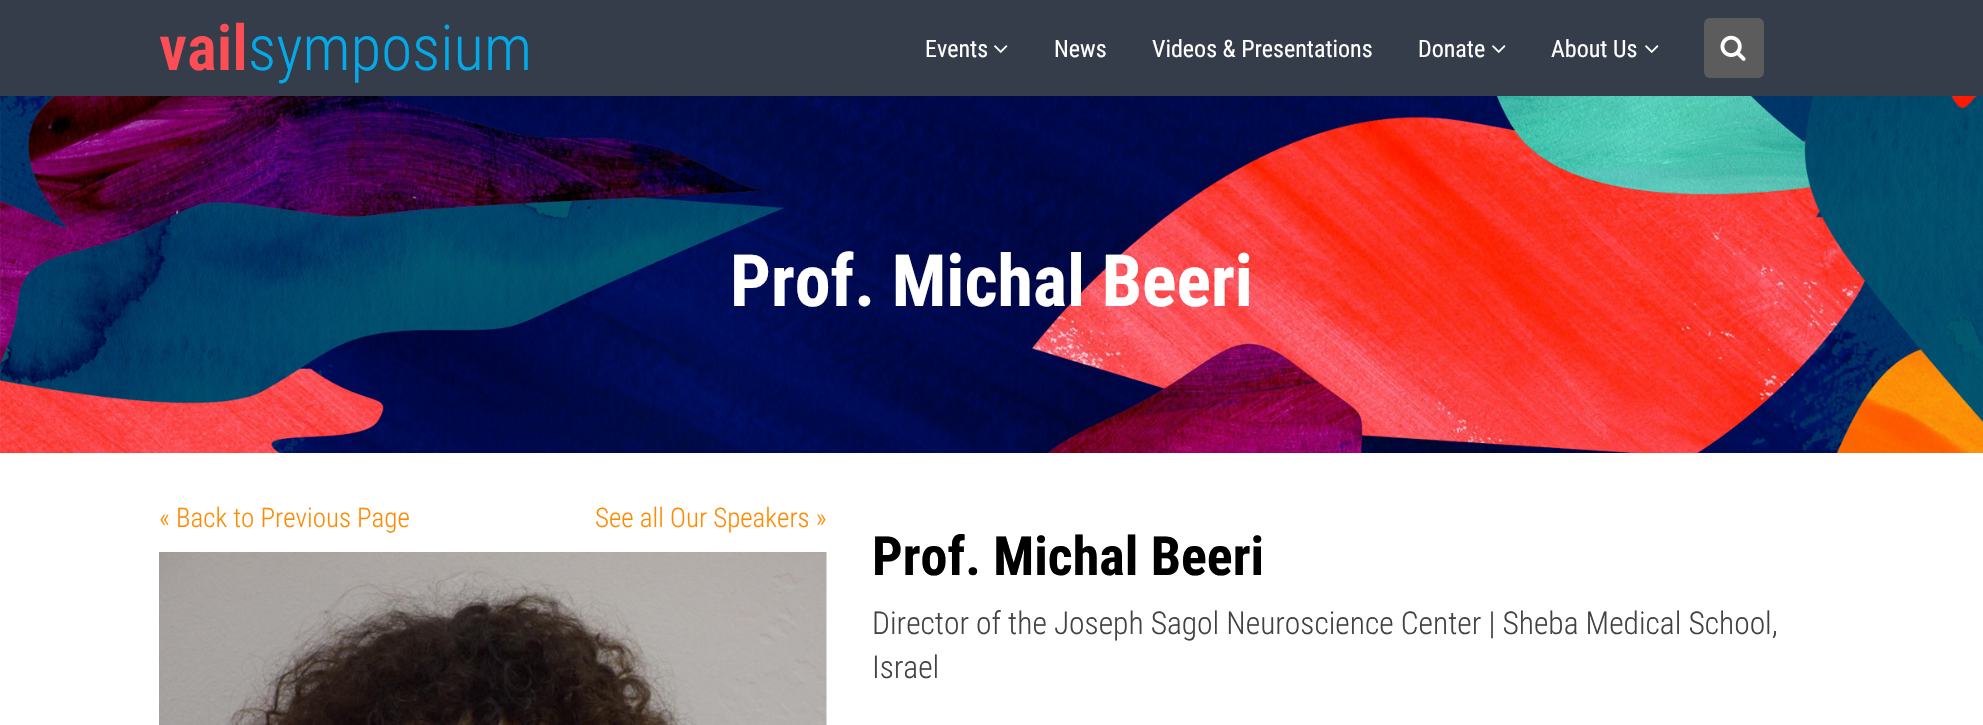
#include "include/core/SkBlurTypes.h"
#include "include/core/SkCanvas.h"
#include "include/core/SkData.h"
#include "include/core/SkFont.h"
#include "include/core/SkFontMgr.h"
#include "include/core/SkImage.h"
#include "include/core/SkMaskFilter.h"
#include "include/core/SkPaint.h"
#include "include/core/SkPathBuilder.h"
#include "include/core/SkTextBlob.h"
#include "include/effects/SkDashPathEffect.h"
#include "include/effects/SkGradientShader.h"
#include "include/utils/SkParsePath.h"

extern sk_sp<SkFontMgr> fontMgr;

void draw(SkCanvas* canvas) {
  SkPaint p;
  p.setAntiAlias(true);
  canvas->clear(SK_ColorWHITE);
  p.setColor(SkColorSetRGB(52, 61, 73));
  canvas->drawRect(SkRect::MakeLTRB(0, 0, 1983, 96), p);
  canvas->drawImageRect(SkImages::DeferredFromEncodedData(SkData::MakeFromFileName("images/1.png")), SkRect::MakeLTRB(994, 45, 1008, 53), SkSamplingOptions());
  canvas->drawImageRect(SkImages::DeferredFromEncodedData(SkData::MakeFromFileName("images/1.png")), SkRect::MakeLTRB(1492, 45, 1506, 53), SkSamplingOptions());
  canvas->drawImageRect(SkImages::DeferredFromEncodedData(SkData::MakeFromFileName("images/1.png")), SkRect::MakeLTRB(1645, 45, 1659, 53), SkSamplingOptions());
  p.setColor(SkColorSetRGB(93, 92, 92));
  canvas->drawRoundRect(SkRect::MakeLTRB(1704, 18, 1764, 78), 6, 6, p);
  canvas->drawImageRect(SkImages::DeferredFromEncodedData(SkData::MakeFromFileName("images/2.png")), SkRect::MakeLTRB(1720, 35, 1746, 61), SkSamplingOptions());
  canvas->drawImageRect(SkImages::DeferredFromEncodedData(SkData::MakeFromFileName("images/3.png")), SkRect::MakeLTRB(0, 96, 1983, 453), SkSamplingOptions());
  canvas->drawImageRect(SkImages::DeferredFromEncodedData(SkData::MakeFromFileName("images/4.png")), SkRect::MakeLTRB(159, 552, 827, 725), SkSamplingOptions());
  SkFont font1(fontMgr->matchFamilyStyle("Roboto Condensed", SkFontStyle(600, SkFontStyle::kNormal_Width, SkFontStyle::kUpright_Slant)), 63);
  font1.setSubpixel(true);
  p.setColor(SkColorSetRGB(253, 78, 85));
  canvas->drawString("vail", 159, 70, font1, p);
  SkFont font2(fontMgr->matchFamilyStyle("Roboto Condensed", SkFontStyle(300, SkFontStyle::kNormal_Width, SkFontStyle::kUpright_Slant)), 63);
  font2.setSubpixel(true);
  p.setColor(SkColorSetRGB(3, 169, 232));
  canvas->drawString("symposium", 248, 70, font2, p);
  SkFont font3(fontMgr->matchFamilyStyle("Roboto Condensed", SkFontStyle::Normal()), 24);
  font3.setSubpixel(true);
  p.setColor(SK_ColorWHITE);
  canvas->drawString("Events", 925, 57, font3, p);
  canvas->drawString("News", 1054, 57, font3, p);
  canvas->drawString("Videos & Presentations", 1152, 57, font3, p);
  canvas->drawString("Donate", 1418, 57, font3, p);
  canvas->drawString("About Us", 1551, 57, font3, p);
  SkFont font4(fontMgr->matchFamilyStyle("Roboto Condensed", SkFontStyle::Bold()), 72);
  font4.setSubpixel(true);
  canvas->drawString("Prof. Michal Beeri", 730, 306, font4, p);
  SkFont font5(fontMgr->matchFamilyStyle("Roboto Condensed", SkFontStyle(300, SkFontStyle::kNormal_Width, SkFontStyle::kUpright_Slant)), 27);
  font5.setSubpixel(true);
  p.setColor(SkColorSetRGB(255, 138, 0));
  canvas->drawString("« Back to Previous Page", 159, 527, font5, p);
  canvas->drawString("See all Our Speakers »", 595, 527, font5, p);
  SkFont font6(fontMgr->matchFamilyStyle("Roboto Condensed", SkFontStyle::Bold()), 54);
  font6.setSubpixel(true);
  p.setColor(SK_ColorBLACK);
  canvas->drawString("Prof. Michal Beeri", 872, 575, font6, p);
  SkFont font7(fontMgr->matchFamilyStyle("Roboto Condensed", SkFontStyle(300, SkFontStyle::kNormal_Width, SkFontStyle::kUpright_Slant)), 31.5f);
  font7.setSubpixel(true);
  p.setColor(SkColorSetRGB(66, 66, 66));
  canvas->drawString("Director of the Joseph Sagol Neuroscience Center | Sheba Medical School,", 872, 634, font7, p);
  canvas->drawString("Israel", 872, 678, font7, p);
}
